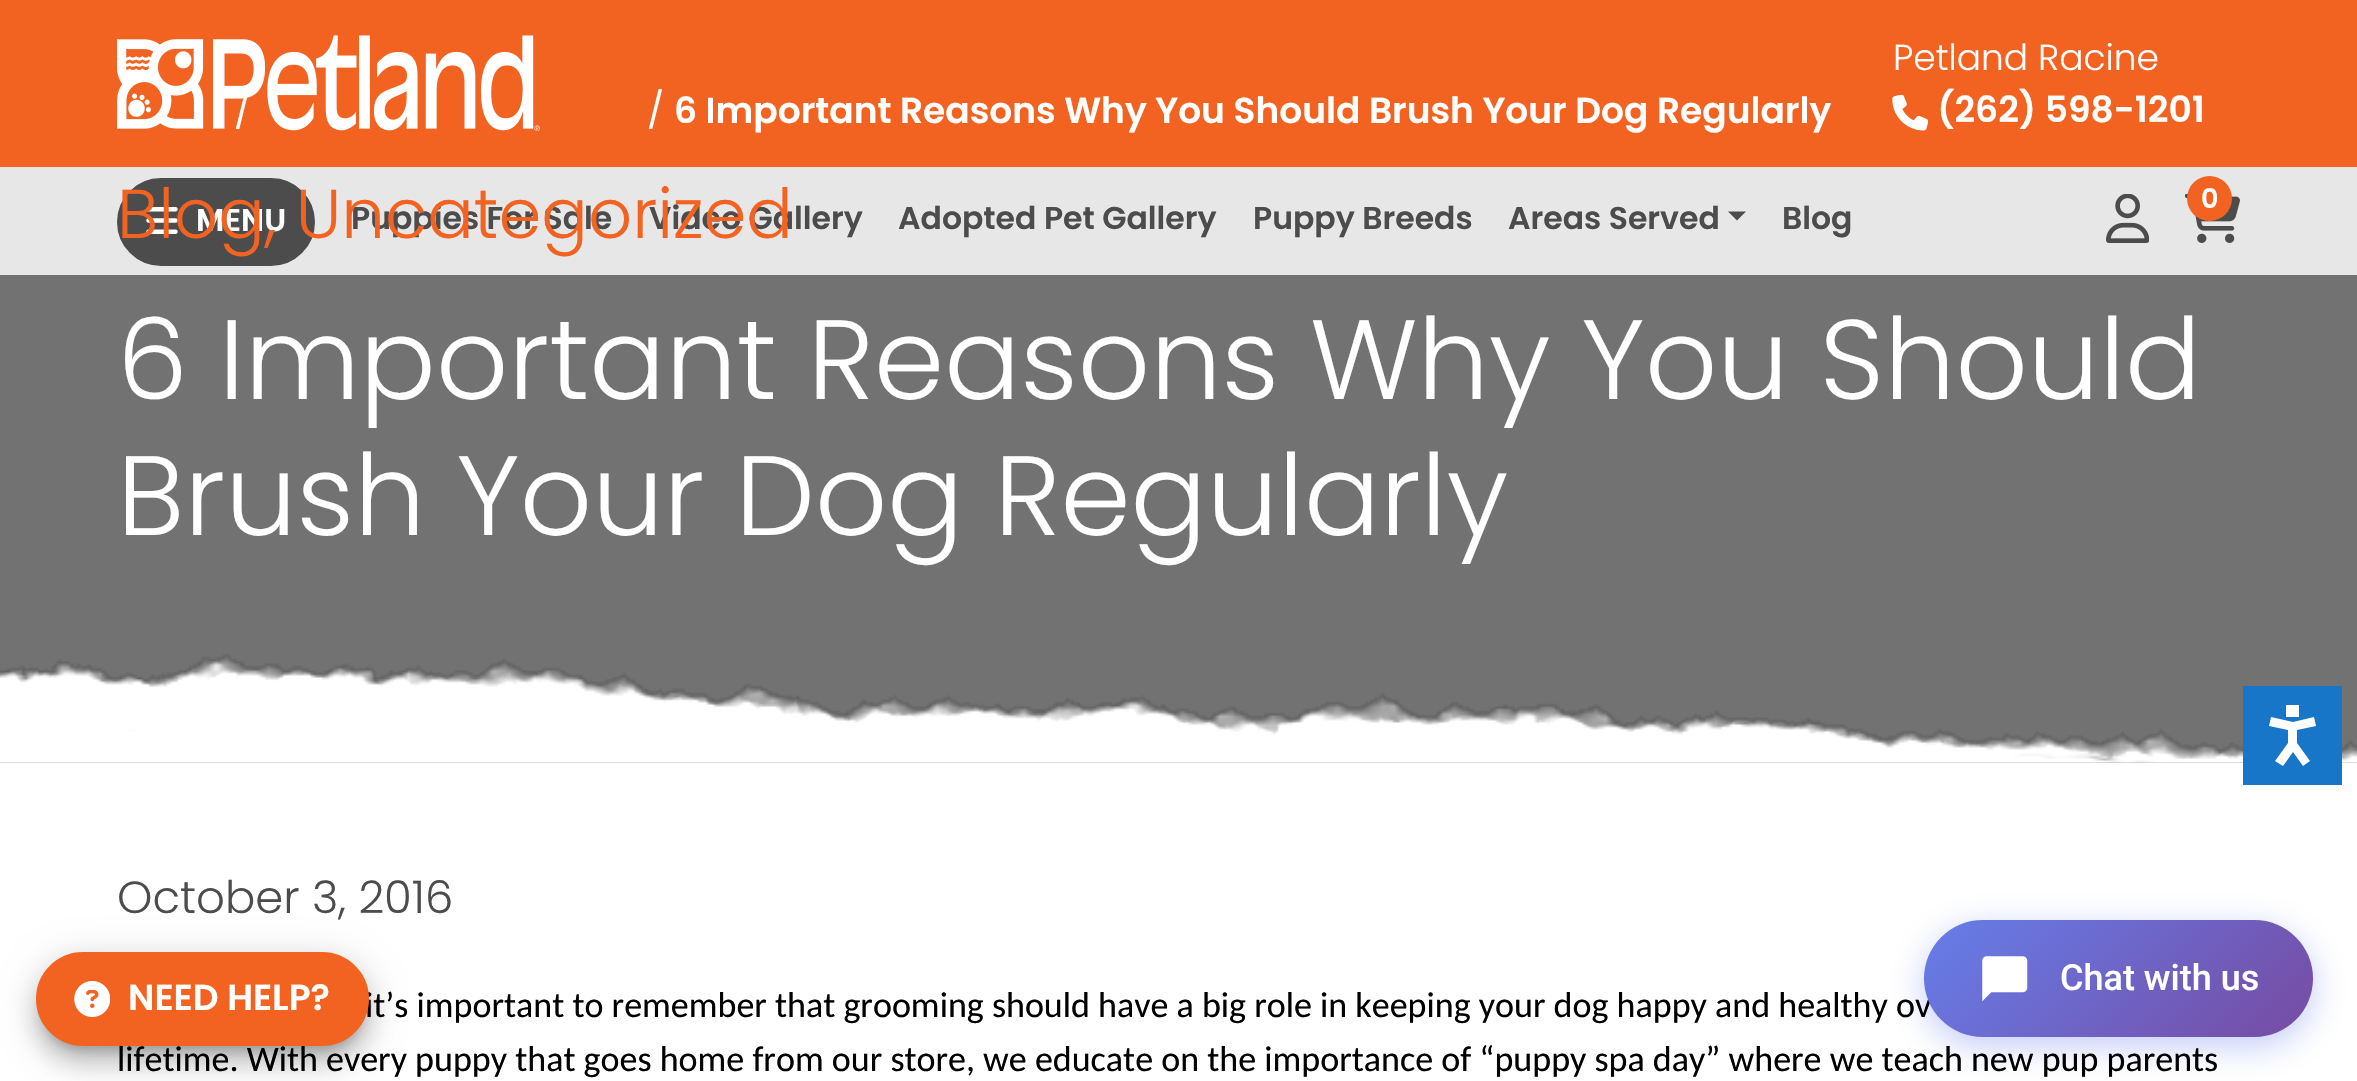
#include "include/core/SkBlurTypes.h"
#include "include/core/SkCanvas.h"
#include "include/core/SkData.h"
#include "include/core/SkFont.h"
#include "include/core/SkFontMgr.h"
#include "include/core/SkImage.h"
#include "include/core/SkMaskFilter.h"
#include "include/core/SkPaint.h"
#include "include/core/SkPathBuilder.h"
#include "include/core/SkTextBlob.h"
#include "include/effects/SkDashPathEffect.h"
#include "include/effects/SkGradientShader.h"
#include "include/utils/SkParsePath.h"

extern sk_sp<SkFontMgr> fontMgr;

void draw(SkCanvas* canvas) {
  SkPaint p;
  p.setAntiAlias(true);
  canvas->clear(SK_ColorWHITE);
  p.setColor(SkColorSetRGB(231, 231, 231));
  canvas->drawRect(SkRect::MakeLTRB(0, 167, 2357, 275), p);
  p.setColor(SkColorSetRGB(242, 99, 34));
  canvas->drawRect(SkRect::MakeLTRB(0, 0, 2357, 167), p);
  canvas->drawImageRect(SkImages::DeferredFromEncodedData(SkData::MakeFromFileName("images/1.png")), SkRect::MakeLTRB(117, 35, 540, 131), SkSamplingOptions());
  canvas->drawImageRect(SkImages::DeferredFromEncodedData(SkData::MakeFromFileName("images/2.png")), SkRect::MakeLTRB(1892, 95, 1928, 131), SkSamplingOptions());
  canvas->drawImageRect(SkImages::DeferredFromEncodedData(SkData::MakeFromFileName("images/3.png")), SkRect::MakeLTRB(2106, 194, 2149, 243), SkSamplingOptions());
  canvas->drawImageRect(SkImages::DeferredFromEncodedData(SkData::MakeFromFileName("images/4.png")), SkRect::MakeLTRB(2185, 194, 2240, 243), SkSamplingOptions());
  canvas->drawCircle(2209.5f, 198.5f, 22.5f, p);
  p.setColor(SkColorSetRGB(76, 76, 76));
  canvas->drawRoundRect(SkRect::MakeLTRB(118, 179, 314, 265), 43, 43, p);
  p.setStyle(SkPaint::kStroke_Style);
  p.setStrokeWidth(2);
  canvas->drawRoundRect(SkRect::MakeLTRB(118, 179, 314, 265), 43, 43, p);
  canvas->drawImageRect(SkImages::DeferredFromEncodedData(SkData::MakeFromFileName("images/5.png")), SkRect::MakeLTRB(146, 207, 178, 234), SkSamplingOptions());
  p.setStyle(SkPaint::kFill_Style);
  canvas->drawPath(SkPathBuilder().moveTo(1728, 211.5f).lineTo(1746, 211.5f).lineTo(1737, 220.5f).close().detach(), p);
  p.setColor(SkColorSetRGB(114, 114, 114));
  canvas->drawRect(SkRect::MakeLTRB(0, 275, 2357, 763), p);
  canvas->drawImageRect(SkImages::DeferredFromEncodedData(SkData::MakeFromFileName("images/6.png")), SkRect::MakeLTRB(0, 654, 2357, 763), SkSamplingOptions());
  p.setColor(SkColorSetRGB(24, 118, 201));
  canvas->drawRect(SkRect::MakeLTRB(2243, 686, 2342, 785), p);
  p.setColor(SK_ColorWHITE);
  canvas->drawPath(SkPathBuilder().moveTo(2288, 730).lineTo(2269, 726).lineTo(2271, 717).lineTo(2293, 722).lineTo(2314, 717).lineTo(2316, 726).lineTo(2297, 730).lineTo(2297, 743).lineTo(2310, 761).lineTo(2303, 766).lineTo(2293, 752).lineTo(2283, 766).lineTo(2275, 761).lineTo(2288, 743).close().moveTo(2286, 705).lineTo(2299, 705).lineTo(2299, 717).lineTo(2286, 717).close().detach(), p);
  p.setColor(SkColorSetARGB(102, 102, 126, 234));
  p.setMaskFilter(SkMaskFilter::MakeBlur(kNormal_SkBlurStyle, 17));
  canvas->drawRoundRect(SkRect::MakeLTRB(1924, 929, 2313, 1046), 58.5f, 58.5f, p);
  p.setMaskFilter(nullptr);
  p.setColor(SkColorSetARGB(31, 0, 0, 0));
  p.setMaskFilter(SkMaskFilter::MakeBlur(kNormal_SkBlurStyle, 16));
  canvas->drawRoundRect(SkRect::MakeLTRB(32, 954, 374, 1058), 52, 52, p);
  p.setMaskFilter(nullptr);
  p.setColor(SkColorSetARGB(36, 0, 0, 0));
  p.setMaskFilter(SkMaskFilter::MakeBlur(kNormal_SkBlurStyle, 11));
  canvas->drawRoundRect(SkRect::MakeLTRB(34, 968, 371, 1067), 49.5f, 49.5f, p);
  p.setMaskFilter(nullptr);
  p.setColor(SkColorSetARGB(51, 0, 0, 0));
  p.setMaskFilter(SkMaskFilter::MakeBlur(kNormal_SkBlurStyle, 5.5f));
  canvas->drawRoundRect(SkRect::MakeLTRB(43, 970, 362, 1051), 40.5f, 40.5f, p);
  p.setMaskFilter(nullptr);
  SkFont font1(fontMgr->matchFamilyStyle("Poppins", SkFontStyle(300, SkFontStyle::kNormal_Width, SkFontStyle::kUpright_Slant)), 36);
  font1.setSubpixel(true);
  p.setColor(SK_ColorWHITE);
  canvas->drawString("Petland Racine", 1893, 70, font1, p);
  SkFont font2(fontMgr->matchFamilyStyle("Poppins", SkFontStyle(600, SkFontStyle::kNormal_Width, SkFontStyle::kUpright_Slant)), 36);
  font2.setSubpixel(true);
  canvas->drawString("(262) 598-1201", 1937, 122, font2, p);
  SkFont font3(fontMgr->matchFamilyStyle("Poppins", SkFontStyle(600, SkFontStyle::kNormal_Width, SkFontStyle::kUpright_Slant)), 27);
  font3.setSubpixel(true);
  canvas->drawString("0", 2201, 208, font3, p);
  SkFont font4(fontMgr->matchFamilyStyle("Poppins", SkFontStyle(600, SkFontStyle::kNormal_Width, SkFontStyle::kUpright_Slant)), 31.5f);
  font4.setSubpixel(true);
  canvas->drawString("MENU", 196, 231, font4, p);
  p.setColor(SkColorSetRGB(76, 76, 76));
  canvas->drawString("Puppies For Sale", 351, 229, font4, p);
  canvas->drawString("Video Gallery", 649, 229, font4, p);
  canvas->drawString("Adopted Pet Gallery", 898, 229, font4, p);
  canvas->drawString("Puppy Breeds", 1253, 229, font4, p);
  canvas->drawString("Areas Served", 1508, 229, font4, p);
  canvas->drawString("Blog", 1782, 229, font4, p);
  SkFont font5(fontMgr->matchFamilyStyle("Poppins", SkFontStyle::Normal()), 36);
  font5.setSubpixel(true);
  p.setColor(SK_ColorWHITE);
  canvas->drawString("/", 234, 123, font5, p);
  canvas->drawString("/", 647, 123, font5, p);
  canvas->drawString("6 Important Reasons Why You Should Brush Your Dog Regularly", 674, 123, font2, p);
  SkFont font6(fontMgr->matchFamilyStyle("Poppins", SkFontStyle(300, SkFontStyle::kNormal_Width, SkFontStyle::kUpright_Slant)), 69);
  font6.setSubpixel(true);
  p.setColor(SkColorSetRGB(242, 99, 34));
  canvas->drawString("Blog, Uncategorized", 117, 238, font6, p);
  SkFont font7(fontMgr->matchFamilyStyle("Poppins", SkFontStyle(300, SkFontStyle::kNormal_Width, SkFontStyle::kUpright_Slant)), 112.75f);
  font7.setSubpixel(true);
  p.setColor(SK_ColorWHITE);
  canvas->drawString("6 Important Reasons Why You Should", 117, 399, font7, p);
  canvas->drawString("Brush Your Dog Regularly", 117, 535, font7, p);
  SkFont font8(fontMgr->matchFamilyStyle("Poppins", SkFontStyle(300, SkFontStyle::kNormal_Width, SkFontStyle::kUpright_Slant)), 45);
  font8.setSubpixel(true);
  p.setColor(SkColorSetRGB(76, 76, 76));
  canvas->drawString("October 3, 2016", 117, 913, font8, p);
  SkFont font9(fontMgr->matchFamilyStyle("Carlito", SkFontStyle::Normal()), 36);
  font9.setSubpixel(true);
  p.setColor(SK_ColorBLACK);
  canvas->drawString("it’s important to remember that grooming should have a big role in keeping your dog happy and healthy ov", 365, 1017, font9, p);
  canvas->drawString("lifetime. With every puppy that goes home from our store, we educate on the importance of “puppy spa day” where we teach new pup parents", 117, 1071, font9, p);
  {
    const SkColor colors[] = {SkColorSetRGB(102, 126, 234), SkColorSetRGB(118, 75, 162)};
    const float stops[] = {0, 1};
    const SkPoint ends[] = {{1992, 852}, {2245, 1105}};
    p.setShader(SkGradientShader::MakeLinear(ends, colors, stops, 2, SkTileMode::kClamp));
    p.setAlpha(255);
  }
  canvas->drawRoundRect(SkRect::MakeLTRB(1924, 920, 2313, 1037), 58.5f, 58.5f, p);
  canvas->drawImageRect(SkImages::DeferredFromEncodedData(SkData::MakeFromFileName("images/7.png")), SkRect::MakeLTRB(1982, 956, 2028, 1002), SkSamplingOptions());
  SkFont font10(fontMgr->matchFamilyStyle("Roboto", SkFontStyle(500, SkFontStyle::kNormal_Width, SkFontStyle::kUpright_Slant)), 36);
  font10.setSubpixel(true);
  p.setShader(nullptr);
  p.setColor(SK_ColorWHITE);
  canvas->drawString("Chat with us", 2060, 990, font10, p);
  p.setColor(SkColorSetRGB(242, 99, 34));
  canvas->drawRoundRect(SkRect::MakeLTRB(37, 953, 368, 1045), 46, 46, p);
  p.setStyle(SkPaint::kStroke_Style);
  canvas->drawRoundRect(SkRect::MakeLTRB(37, 953, 368, 1045), 46, 46, p);
  canvas->drawImageRect(SkImages::DeferredFromEncodedData(SkData::MakeFromFileName("images/8.png")), SkRect::MakeLTRB(74, 981, 110, 1017), SkSamplingOptions());
  p.setStyle(SkPaint::kFill_Style);
  p.setColor(SK_ColorWHITE);
  canvas->drawString("NEED HELP?", 128, 1010, font2, p);
}
